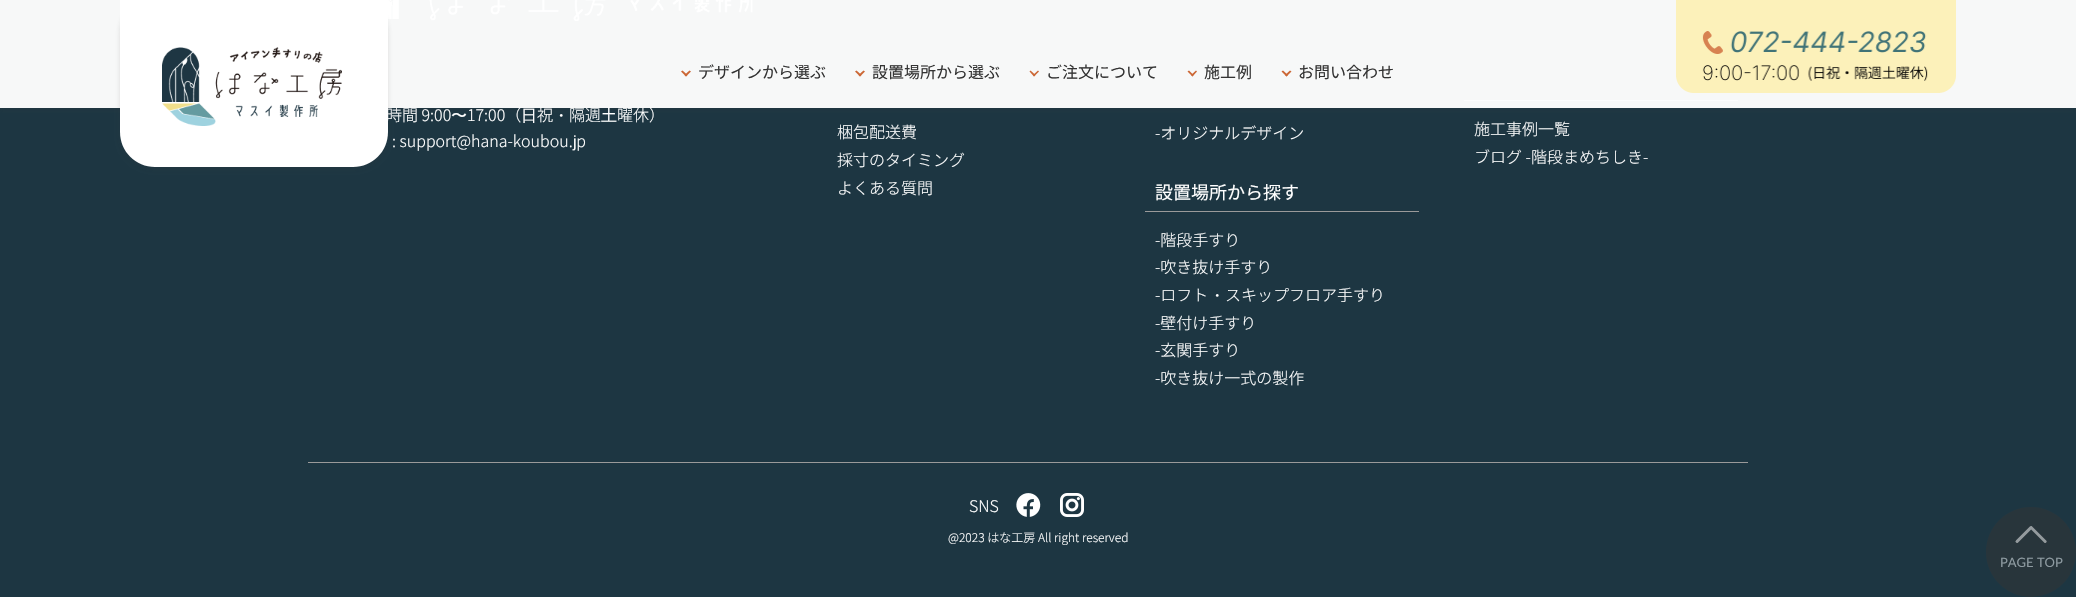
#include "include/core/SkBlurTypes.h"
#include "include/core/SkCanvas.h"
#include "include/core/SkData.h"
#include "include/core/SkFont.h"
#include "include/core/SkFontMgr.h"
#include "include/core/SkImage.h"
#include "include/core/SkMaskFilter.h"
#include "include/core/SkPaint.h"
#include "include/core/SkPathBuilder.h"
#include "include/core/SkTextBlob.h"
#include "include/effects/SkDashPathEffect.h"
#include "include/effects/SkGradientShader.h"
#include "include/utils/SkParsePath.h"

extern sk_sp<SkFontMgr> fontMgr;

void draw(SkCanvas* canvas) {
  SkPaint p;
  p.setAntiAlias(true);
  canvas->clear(SkColorSetRGB(29, 54, 66));
  canvas->drawImageRect(SkImages::DeferredFromEncodedData(SkData::MakeFromFileName("images/3.png")), SkRect::MakeLTRB(388, 0, 753, 21), SkSamplingOptions());
  p.setColor(SkColorSetRGB(154, 154, 154));
  canvas->drawRect(SkRect::MakeLTRB(1464, 100, 1738, 101), p);
  canvas->save();
  canvas->clipRect(SkRect::MakeLTRB(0, 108, 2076, 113));
  p.setColor(SkColorSetARGB(38, 51, 51, 51));
  p.setMaskFilter(SkMaskFilter::MakeBlur(kNormal_SkBlurStyle, 2.5f));
  canvas->drawRect(SkRect::MakeLTRB(0, 2, 2076, 110), p);
  p.setMaskFilter(nullptr);
  canvas->restore();
  p.setColor(SkColorSetRGB(154, 154, 154));
  canvas->drawRect(SkRect::MakeLTRB(1145, 211, 1419, 212), p);
  canvas->drawRect(SkRect::MakeLTRB(308, 462, 1748, 463), p);
  canvas->drawImageRect(SkImages::DeferredFromEncodedData(SkData::MakeFromFileName("images/4.png")), SkRect::MakeLTRB(1016, 493, 1041, 517), SkSamplingOptions());
  canvas->drawImageRect(SkImages::DeferredFromEncodedData(SkData::MakeFromFileName("images/5.png")), SkRect::MakeLTRB(1060, 493, 1084, 517), SkSamplingOptions());
  p.setColor(SkColorSetRGB(40, 53, 59));
  canvas->drawCircle(2031, 552, 45, p);
  canvas->drawImageRect(SkImages::DeferredFromEncodedData(SkData::MakeFromFileName("images/6.png")), SkRect::MakeLTRB(2015, 526, 2047, 543), SkSamplingOptions());
  SkFont font1(fontMgr->matchFamilyStyle("Noto Sans JP", SkFontStyle(300, SkFontStyle::kNormal_Width, SkFontStyle::kUpright_Slant)), 16);
  font1.setSubpixel(true);
  p.setColor(SK_ColorWHITE);
  canvas->drawString("時間 9:00", 386, 121, font1, p);
  SkFont font2(fontMgr->matchFamilyStyle("WenQuanYi Zen Hei", SkFontStyle(500, SkFontStyle::kNormal_Width, SkFontStyle::kUpright_Slant)), 16);
  font2.setSubpixel(true);
  canvas->drawString("〜", 451, 121, font2, p);
  canvas->drawString("17:00（", 467, 121, font1, p);
  canvas->drawString("⽇", 521, 121, font2, p);
  canvas->drawString("祝", 537, 121, font1, p);
  canvas->drawString("・", 553, 121, font2, p);
  canvas->drawString("隔週", 569, 121, font1, p);
  canvas->drawString("⼟", 601, 121, font2, p);
  canvas->drawString("曜休）", 617, 121, font1, p);
  p.setColor(SkColorSetARGB(245, 255, 255, 255));
  canvas->drawRect(SkRect::MakeLTRB(0, 0, 2076, 108), p);
  SkFont font3(fontMgr->matchFamilyStyle("Noto Sans JP", SkFontStyle::Normal()), 16);
  font3.setSubpixel(true);
  p.setColor(SkColorSetRGB(51, 51, 51));
  canvas->drawString("お問い合わせ", 1298, 78, font3, p);
  p.setColor(SkColorSetRGB(204, 103, 53));
  canvas->drawPath(SkPathBuilder().moveTo(1291.5f, 71.5f).lineTo(1286.5f, 76.5f).lineTo(1285, 75).lineTo(1290, 70.5f).close().detach(), p);
  canvas->drawPath(SkPathBuilder().moveTo(1288, 75).lineTo(1286.5f, 76.5f).lineTo(1281.5f, 71.5f).lineTo(1283, 70.5f).close().detach(), p);
  p.setColor(SkColorSetRGB(51, 51, 51));
  canvas->drawString("施工例", 1204, 78, font3, p);
  p.setColor(SkColorSetRGB(204, 103, 53));
  canvas->drawPath(SkPathBuilder().moveTo(1197, 71.5f).lineTo(1192.5f, 76.5f).lineTo(1191, 75).lineTo(1196, 70.5f).close().detach(), p);
  canvas->drawPath(SkPathBuilder().moveTo(1193.5f, 75).lineTo(1192.5f, 76.5f).lineTo(1187.5f, 71.5f).lineTo(1189, 70.5f).close().detach(), p);
  p.setColor(SkColorSetRGB(51, 51, 51));
  canvas->drawString("ご注文について", 1046, 78, font3, p);
  p.setColor(SkColorSetRGB(204, 103, 53));
  canvas->drawPath(SkPathBuilder().moveTo(1039, 71.5f).lineTo(1034, 76.5f).lineTo(1033, 75).lineTo(1038, 70.5f).close().detach(), p);
  canvas->drawPath(SkPathBuilder().moveTo(1035.5f, 75).lineTo(1034, 76.5f).lineTo(1029.5f, 71.5f).lineTo(1030.5f, 70.5f).close().detach(), p);
  p.setColor(SkColorSetRGB(51, 51, 51));
  canvas->drawString("設置場所から選ぶ", 872, 78, font3, p);
  p.setColor(SkColorSetRGB(204, 103, 53));
  canvas->drawPath(SkPathBuilder().moveTo(865, 71.5f).lineTo(860, 76.5f).lineTo(858.5f, 75).lineTo(863.5f, 70.5f).close().detach(), p);
  canvas->drawPath(SkPathBuilder().moveTo(861.5f, 75).lineTo(860, 76.5f).lineTo(855, 71.5f).lineTo(856.5f, 70.5f).close().detach(), p);
  p.setColor(SkColorSetRGB(51, 51, 51));
  canvas->drawString("デザインから選ぶ", 698, 78, font3, p);
  p.setColor(SkColorSetRGB(204, 103, 53));
  canvas->drawPath(SkPathBuilder().moveTo(691, 71.5f).lineTo(686, 76.5f).lineTo(684.5f, 75).lineTo(689.5f, 70.5f).close().detach(), p);
  canvas->drawPath(SkPathBuilder().moveTo(687.5f, 75).lineTo(686, 76.5f).lineTo(681, 71.5f).lineTo(682.5f, 70.5f).close().detach(), p);
  canvas->drawImageRect(SkImages::DeferredFromEncodedData(SkData::MakeFromFileName("images/2.png")), SkRect::MakeLTRB(1676, 0, 1956, 93), SkSamplingOptions());
  p.setColor(SkColorSetARGB(38, 51, 51, 51));
  p.setMaskFilter(SkMaskFilter::MakeBlur(kNormal_SkBlurStyle, 2.5f));
  canvas->drawRoundRect(SkRect::MakeLTRB(120, -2, 388, 169), 35, 35, p);
  p.setMaskFilter(nullptr);
  p.setColor(SK_ColorWHITE);
  canvas->drawPath(SkPathBuilder().moveTo(120, -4).lineTo(388, -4).lineTo(388, 132).cubicTo(388, 151.5f, 372.5f, 167, 353, 167).lineTo(155, 167).cubicTo(135.5f, 167, 120, 151.5f, 120, 132).close().detach(), p);
  canvas->drawImageRect(SkImages::DeferredFromEncodedData(SkData::MakeFromFileName("images/1.png")), SkRect::MakeLTRB(162, 47, 342, 126), SkSamplingOptions());
  canvas->drawString(": support@hana-koubou. p", 392, 147, font1, p);
  SkFont font4(fontMgr->matchFamilyStyle("Liberation Sans", SkFontStyle::Normal()), 16);
  font4.setSubpixel(true);
  canvas->drawString("j", 573, 147, font4, p);
  canvas->drawString("梱包配送費", 837, 138, font1, p);
  canvas->drawString("採寸のタイミング", 837, 166, font1, p);
  canvas->drawString("よくある質問", 837, 194, font1, p);
  canvas->drawString("-オリジナルデザイン", 1155, 139, font1, p);
  SkFont font5(fontMgr->matchFamilyStyle("Noto Sans JP", SkFontStyle::Normal()), 18);
  font5.setSubpixel(true);
  canvas->drawString("設置場所から探す", 1155, 199, font5, p);
  canvas->drawString("-階段手すり", 1155, 246, font1, p);
  canvas->drawString("-吹き抜け手すり", 1155, 273, font1, p);
  canvas->drawString("-ロフト", 1155, 301, font1, p);
  canvas->drawString("・", 1209, 301, font2, p);
  canvas->drawString("スキップフロア手すり", 1225, 301, font1, p);
  canvas->drawString("-壁付け手すり", 1155, 329, font1, p);
  canvas->drawString("-玄関手すり", 1155, 356, font1, p);
  canvas->drawString("-吹き抜け一式の製作", 1155, 384, font1, p);
  canvas->drawString("施工事例一覧", 1474, 135, font1, p);
  canvas->drawString("ブログ -階段まめちしき-", 1474, 163, font1, p);
  canvas->drawString("SNS", 969, 512, font1, p);
  SkFont font6(fontMgr->matchFamilyStyle("Noto Sans JP", SkFontStyle(300, SkFontStyle::kNormal_Width, SkFontStyle::kUpright_Slant)), 12);
  font6.setSubpixel(true);
  canvas->drawString("@2023 はな工房 All right reserved", 948, 542, font6, p);
  SkFont font7(fontMgr->matchFamilyStyle("Lato", SkFontStyle::Normal()), 13);
  font7.setSubpixel(true);
  p.setColor(SkColorSetRGB(142, 155, 161));
  canvas->drawString("PAGE TOP", 2000, 567, font7, p);
}
